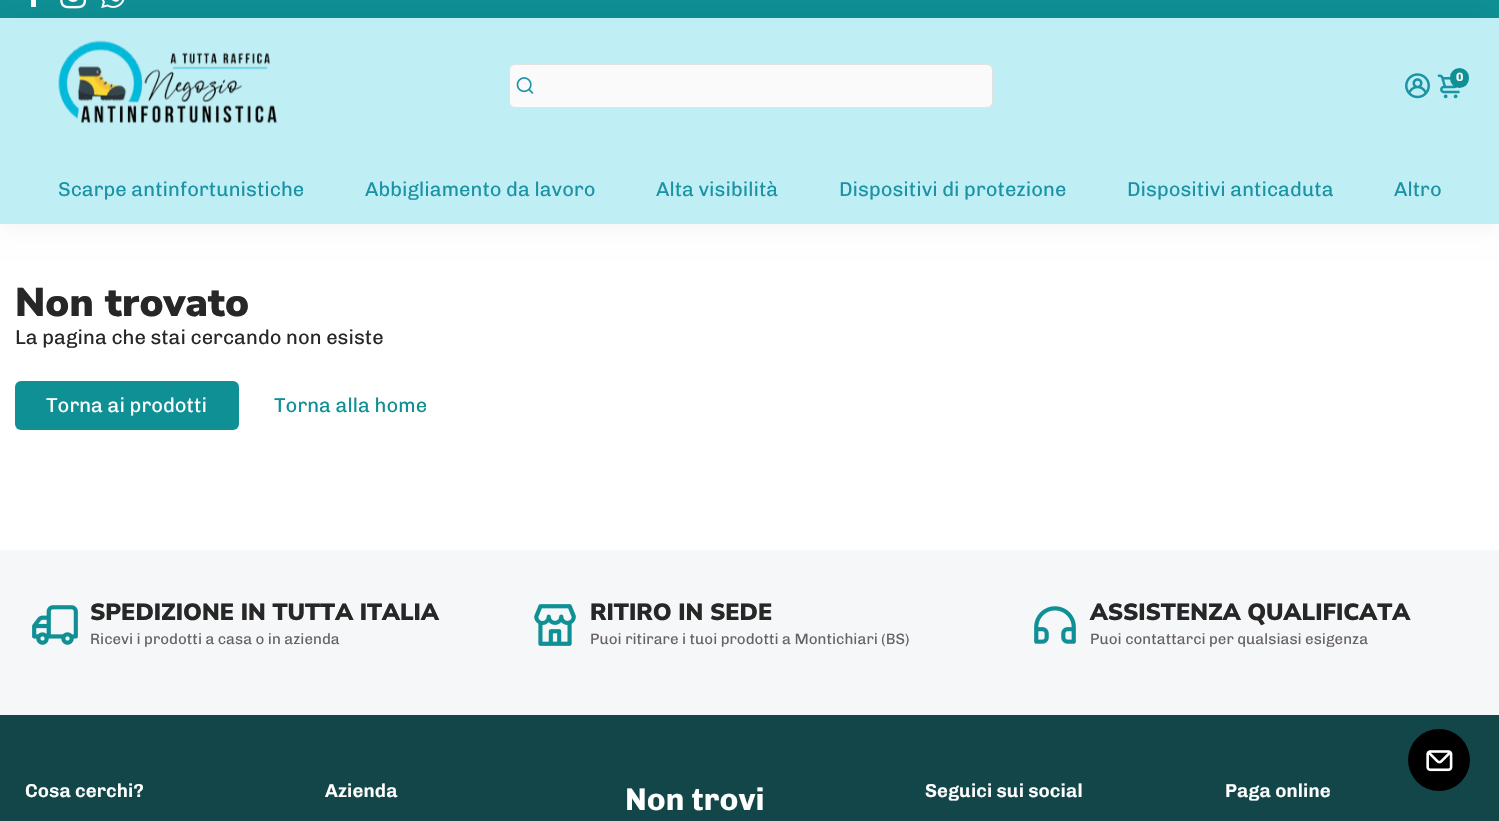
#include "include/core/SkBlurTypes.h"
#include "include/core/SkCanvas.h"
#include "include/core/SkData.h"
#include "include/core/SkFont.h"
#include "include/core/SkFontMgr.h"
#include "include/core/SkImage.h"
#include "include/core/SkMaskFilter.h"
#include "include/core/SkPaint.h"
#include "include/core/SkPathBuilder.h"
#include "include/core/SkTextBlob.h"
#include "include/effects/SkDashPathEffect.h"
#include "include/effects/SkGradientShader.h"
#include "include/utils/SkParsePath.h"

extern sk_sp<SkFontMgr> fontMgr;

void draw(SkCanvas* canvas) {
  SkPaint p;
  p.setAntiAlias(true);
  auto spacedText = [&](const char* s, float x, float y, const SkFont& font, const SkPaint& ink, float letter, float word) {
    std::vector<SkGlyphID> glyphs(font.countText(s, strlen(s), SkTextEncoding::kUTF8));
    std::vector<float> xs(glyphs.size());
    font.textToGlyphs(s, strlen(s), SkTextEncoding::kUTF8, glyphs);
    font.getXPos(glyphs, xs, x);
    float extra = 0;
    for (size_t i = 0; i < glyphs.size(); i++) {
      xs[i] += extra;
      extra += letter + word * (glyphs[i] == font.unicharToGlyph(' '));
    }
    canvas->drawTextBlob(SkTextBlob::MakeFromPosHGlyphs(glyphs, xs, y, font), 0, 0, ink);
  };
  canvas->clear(SK_ColorWHITE);
  p.setColor(SkColorSetRGB(14, 144, 149));
  canvas->drawRect(SkRect::MakeLTRB(0, 0, 1499, 18), p);
  p.setColor(SK_ColorWHITE);
  canvas->drawRect(SkRect::MakeLTRB(31, 0, 36, 7), p);
  canvas->drawImageRect(SkImages::DeferredFromEncodedData(SkData::MakeFromFileName("images/1.png")), SkRect::MakeLTRB(60, 0, 87, 9), SkSamplingOptions());
  canvas->drawImageRect(SkImages::DeferredFromEncodedData(SkData::MakeFromFileName("images/2.png")), SkRect::MakeLTRB(101, 0, 125, 9), SkSamplingOptions());
  p.setColor(SkColorSetARGB(15, 0, 0, 0));
  p.setMaskFilter(SkMaskFilter::MakeBlur(kNormal_SkBlurStyle, 12.5f));
  canvas->drawRect(SkRect::MakeLTRB(0, 18, 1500, 224), p);
  p.setMaskFilter(nullptr);
  p.setColor(SkColorSetRGB(191, 239, 245));
  canvas->drawRect(SkRect::MakeLTRB(0, 18, 1499, 224), p);
  canvas->drawImageRect(SkImages::DeferredFromEncodedData(SkData::MakeFromFileName("images/3.png")), SkRect::MakeLTRB(58, 40, 277, 124), SkSamplingOptions());
  p.setColor(SkColorSetRGB(250, 250, 250));
  canvas->drawRoundRect(SkRect::MakeLTRB(509.5f, 64.5f, 992.5f, 107.5f), 5.5f, 5.5f, p);
  p.setStyle(SkPaint::kStroke_Style);
  p.setStrokeWidth(1);
  p.setColor(SkColorSetRGB(226, 226, 226));
  canvas->drawRoundRect(SkRect::MakeLTRB(509.5f, 64.5f, 992.5f, 107.5f), 5.5f, 5.5f, p);
  canvas->drawImageRect(SkImages::DeferredFromEncodedData(SkData::MakeFromFileName("images/4.png")), SkRect::MakeLTRB(516, 77, 534, 94), SkSamplingOptions());
  canvas->drawImageRect(SkImages::DeferredFromEncodedData(SkData::MakeFromFileName("images/5.png")), SkRect::MakeLTRB(1405, 73, 1430, 99), SkSamplingOptions());
  canvas->drawImageRect(SkImages::DeferredFromEncodedData(SkData::MakeFromFileName("images/6.png")), SkRect::MakeLTRB(1437, 74, 1460, 99), SkSamplingOptions());
  p.setStyle(SkPaint::kFill_Style);
  p.setColor(SkColorSetRGB(14, 144, 149));
  canvas->drawRoundRect(SkRect::MakeLTRB(1450, 68, 1469, 88), 9.5f, 9.5f, p);
  canvas->drawRoundRect(SkRect::MakeLTRB(15, 381, 239, 430), 6, 6, p);
  p.setColor(SkColorSetRGB(246, 247, 248));
  canvas->drawRect(SkRect::MakeLTRB(0, 550, 1499, 715), p);
  canvas->drawImageRect(SkImages::DeferredFromEncodedData(SkData::MakeFromFileName("images/7.png")), SkRect::MakeLTRB(32, 605, 78, 645), SkSamplingOptions());
  canvas->drawImageRect(SkImages::DeferredFromEncodedData(SkData::MakeFromFileName("images/8.png")), SkRect::MakeLTRB(534, 604, 576, 646), SkSamplingOptions());
  canvas->drawImageRect(SkImages::DeferredFromEncodedData(SkData::MakeFromFileName("images/9.png")), SkRect::MakeLTRB(1034, 606, 1076, 644), SkSamplingOptions());
  p.setColor(SkColorSetRGB(18, 70, 72));
  canvas->drawRect(SkRect::MakeLTRB(0, 715, 1499, 821), p);
  p.setColor(SK_ColorBLACK);
  canvas->drawCircle(1439, 760, 31, p);
  canvas->drawImageRect(SkImages::DeferredFromEncodedData(SkData::MakeFromFileName("images/10.png")), SkRect::MakeLTRB(1426, 750, 1453, 772), SkSamplingOptions());
  SkFont font1(fontMgr->matchFamilyStyle("Chivo", SkFontStyle::Bold()), 12);
  font1.setSubpixel(true);
  p.setColor(SK_ColorWHITE);
  canvas->drawString("0", 1456, 81, font1, p);
  SkFont font2(fontMgr->matchFamilyStyle("Chivo", SkFontStyle::Normal()), 20);
  font2.setSubpixel(true);
  p.setColor(SkColorSetRGB(27, 147, 164));
  canvas->drawString("Scarpe antinfortunistiche", 58, 196, font2, p);
  canvas->drawString("Abbigliamento da lavoro", 365, 196, font2, p);
  canvas->drawString("Alta visibilità", 656, 196, font2, p);
  canvas->drawString("Dispositivi di protezione", 839, 196, font2, p);
  canvas->drawString("Dispositivi anticaduta", 1127, 196, font2, p);
  canvas->drawString("Altro", 1394, 196, font2, p);
  SkFont font3(fontMgr->matchFamilyStyle("Nunito Sans", SkFontStyle(900, SkFontStyle::kNormal_Width, SkFontStyle::kUpright_Slant)), 40);
  font3.setSubpixel(true);
  p.setColor(SkColorSetRGB(39, 39, 39));
  canvas->drawString("Non trovato", 15, 316, font3, p);
  canvas->drawString("La pagina che stai cercando non esiste", 15, 344, font2, p);
  p.setColor(SK_ColorWHITE);
  canvas->drawString("Torna ai prodotti", 46, 412, font2, p);
  p.setColor(SkColorSetRGB(14, 144, 149));
  canvas->drawString("Torna alla home", 274, 412, font2, p);
  SkFont font4(fontMgr->matchFamilyStyle("Nunito Sans", SkFontStyle(900, SkFontStyle::kNormal_Width, SkFontStyle::kUpright_Slant)), 23.4f);
  font4.setSubpixel(true);
  p.setColor(SkColorSetRGB(39, 39, 39));
  canvas->drawString("SPEDIZIONE IN TUTTA ITALIA", 90, 620, font4, p);
  SkFont font5(fontMgr->matchFamilyStyle("Chivo", SkFontStyle::Normal()), 15);
  font5.setSubpixel(true);
  p.setColor(SkColorSetRGB(104, 99, 99));
  canvas->drawString("Ricevi i prodotti a casa o in azienda", 90, 644, font5, p);
  p.setColor(SkColorSetRGB(39, 39, 39));
  canvas->drawString("RITIRO IN SEDE", 590, 620, font4, p);
  p.setColor(SkColorSetRGB(104, 99, 99));
  canvas->drawString("Puoi ritirare i tuoi prodotti a Montichiari (BS)", 590, 644, font5, p);
  p.setColor(SkColorSetRGB(39, 39, 39));
  canvas->drawString("ASSISTENZA QUALIFICATA", 1090, 620, font4, p);
  p.setColor(SkColorSetRGB(104, 99, 99));
  canvas->drawString("Puoi contattarci per qualsiasi esigenza", 1090, 644, font5, p);
  SkFont font6(fontMgr->matchFamilyStyle("Chivo", SkFontStyle(600, SkFontStyle::kNormal_Width, SkFontStyle::kUpright_Slant)), 18.75f);
  font6.setSubpixel(true);
  p.setColor(SK_ColorWHITE);
  spacedText("Cosa cerchi?", 25, 797, font6, p, 0.1f, 0);
  spacedText("Azienda", 325, 797, font6, p, 0.1f, 0);
  SkFont font7(fontMgr->matchFamilyStyle("Chivo", SkFontStyle::Bold()), 31.25f);
  font7.setSubpixel(true);
  spacedText("Non trovi", 625, 810, font7, p, 0.1f, 0);
  spacedText("Seguici sui social", 925, 797, font6, p, 0.1f, 0);
  spacedText("Paga online", 1225, 797, font6, p, 0.1f, 0);
}
